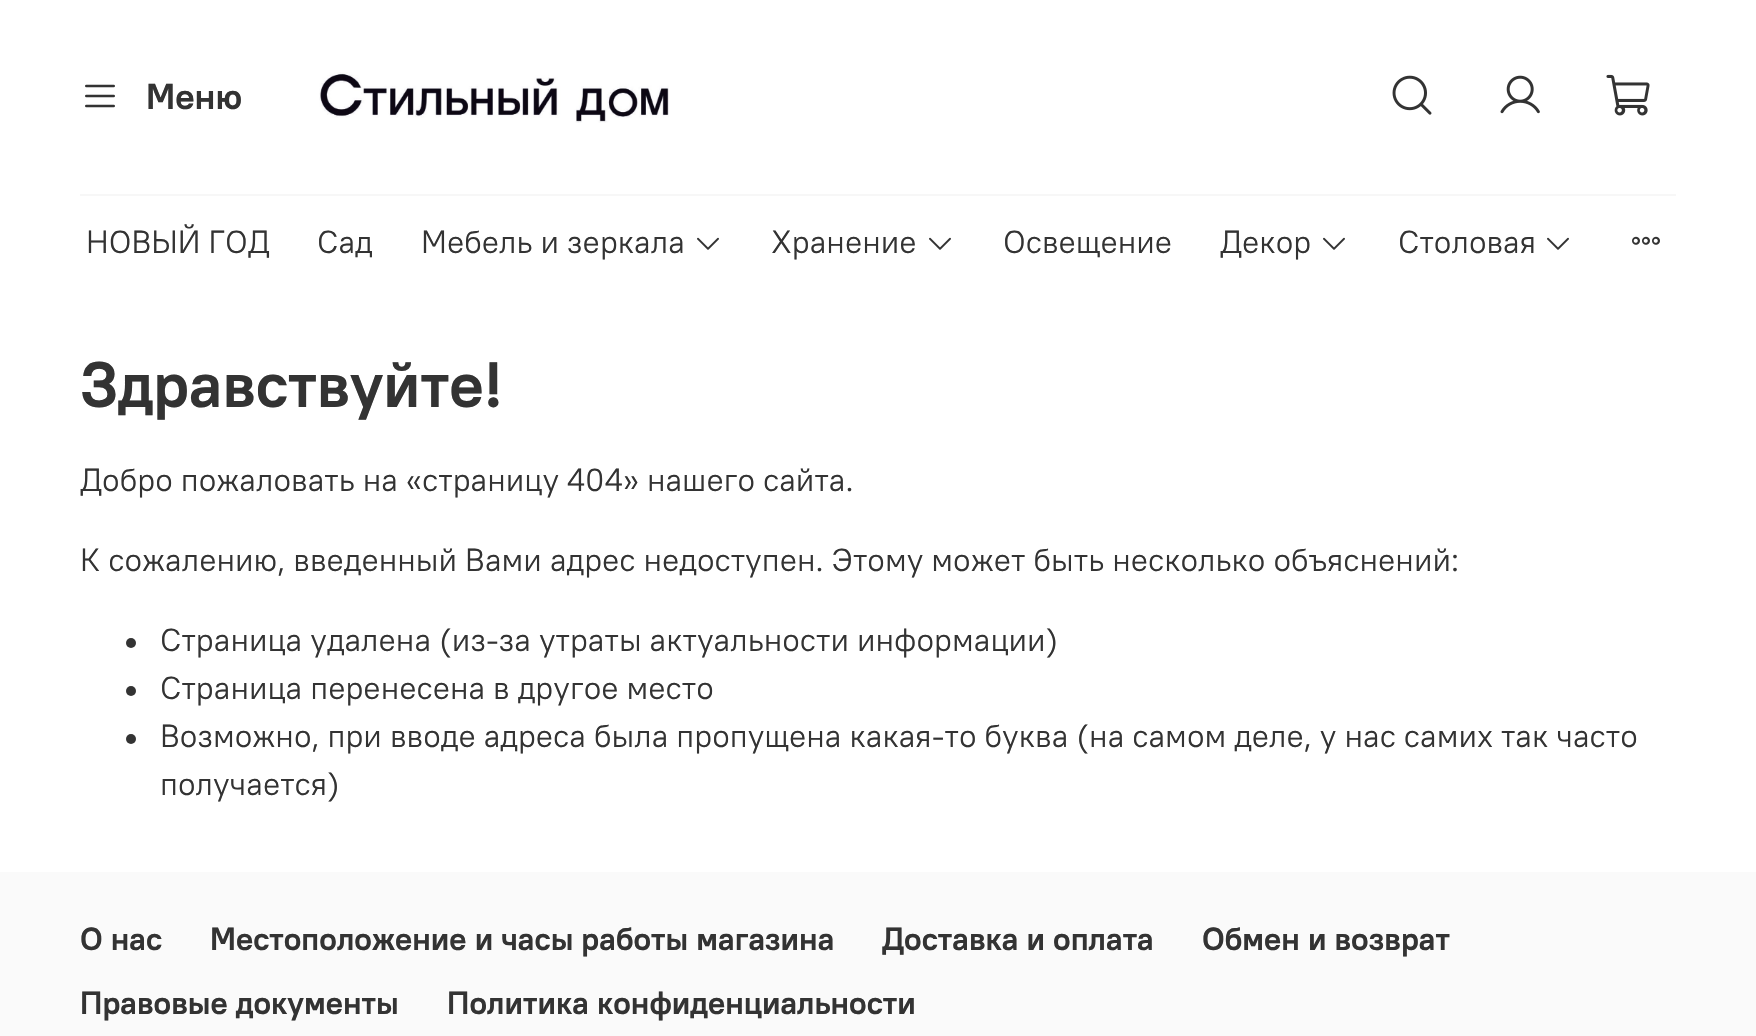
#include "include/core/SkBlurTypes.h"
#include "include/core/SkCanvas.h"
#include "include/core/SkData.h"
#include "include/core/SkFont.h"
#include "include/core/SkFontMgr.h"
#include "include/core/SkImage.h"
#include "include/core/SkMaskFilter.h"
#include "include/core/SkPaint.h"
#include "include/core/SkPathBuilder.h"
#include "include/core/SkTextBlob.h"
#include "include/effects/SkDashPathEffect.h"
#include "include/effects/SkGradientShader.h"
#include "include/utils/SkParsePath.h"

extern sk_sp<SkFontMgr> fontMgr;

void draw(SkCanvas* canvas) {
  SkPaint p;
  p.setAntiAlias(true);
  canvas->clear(SK_ColorWHITE);
  canvas->drawImageRect(SkImages::DeferredFromEncodedData(SkData::MakeFromFileName("images/1.png")), SkRect::MakeLTRB(85, 84, 115, 108), SkSamplingOptions());
  canvas->drawImageRect(SkImages::DeferredFromEncodedData(SkData::MakeFromFileName("images/2.png")), SkRect::MakeLTRB(319, 72, 669, 123), SkSamplingOptions());
  canvas->drawImageRect(SkImages::DeferredFromEncodedData(SkData::MakeFromFileName("images/3.png")), SkRect::MakeLTRB(1392, 75, 1432, 115), SkSamplingOptions());
  canvas->drawImageRect(SkImages::DeferredFromEncodedData(SkData::MakeFromFileName("images/4.png")), SkRect::MakeLTRB(1500, 75, 1540, 114), SkSamplingOptions());
  canvas->drawImageRect(SkImages::DeferredFromEncodedData(SkData::MakeFromFileName("images/5.png")), SkRect::MakeLTRB(1606, 74, 1650, 116), SkSamplingOptions());
  p.setColor(SkColorSetRGB(247, 247, 247));
  canvas->drawRect(SkRect::MakeLTRB(80, 194, 1676, 196), p);
  canvas->drawImageRect(SkImages::DeferredFromEncodedData(SkData::MakeFromFileName("images/6.png")), SkRect::MakeLTRB(697, 237, 719, 250), SkSamplingOptions());
  canvas->drawImageRect(SkImages::DeferredFromEncodedData(SkData::MakeFromFileName("images/6.png")), SkRect::MakeLTRB(929, 237, 951, 250), SkSamplingOptions());
  canvas->drawImageRect(SkImages::DeferredFromEncodedData(SkData::MakeFromFileName("images/6.png")), SkRect::MakeLTRB(1323, 237, 1345, 250), SkSamplingOptions());
  canvas->drawImageRect(SkImages::DeferredFromEncodedData(SkData::MakeFromFileName("images/6.png")), SkRect::MakeLTRB(1547, 237, 1569, 250), SkSamplingOptions());
  canvas->drawImageRect(SkImages::DeferredFromEncodedData(SkData::MakeFromFileName("images/7.png")), SkRect::MakeLTRB(1632, 236, 1660, 245), SkSamplingOptions());
  p.setColor(SkColorSetRGB(51, 51, 51));
  canvas->drawCircle(131, 643, 5, p);
  canvas->drawCircle(131, 691, 5, p);
  canvas->drawCircle(131, 739, 5, p);
  p.setColor(SkColorSetRGB(250, 250, 250));
  canvas->drawRect(SkRect::MakeLTRB(0, 872, 1756, 1036), p);
  SkFont font1(fontMgr->matchFamilyStyle("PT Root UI", SkFontStyle::Bold()), 36);
  font1.setSubpixel(true);
  p.setColor(SkColorSetRGB(51, 51, 51));
  canvas->drawString("Меню", 146, 109, font1, p);
  SkFont font2(fontMgr->matchFamilyStyle("PT Root UI", SkFontStyle::Normal()), 32);
  font2.setSubpixel(true);
  canvas->drawString("НОВЫЙ ГОД", 86, 253, font2, p);
  canvas->drawString("Сад", 317, 253, font2, p);
  canvas->drawString("Мебель и зеркала", 421, 253, font2, p);
  canvas->drawString("Хранение", 771, 253, font2, p);
  canvas->drawString("Освещение", 1003, 253, font2, p);
  canvas->drawString("Декор", 1220, 253, font2, p);
  canvas->drawString("Столовая", 1398, 253, font2, p);
  SkFont font3(fontMgr->matchFamilyStyle("PT Root UI", SkFontStyle::Bold()), 64);
  font3.setSubpixel(true);
  canvas->drawString("Здравствуйте!", 80, 407, font3, p);
  canvas->drawString("Добро пожаловать на «страницу 404» нашего сайта.", 80, 491, font2, p);
  canvas->drawString("К сожалению, введенный Вами адрес недоступен. Этому может быть несколько объяснений:", 80, 571, font2, p);
  canvas->drawString("Страница удалена (из-за утраты актуальности информации)", 160, 651, font2, p);
  canvas->drawString("Страница перенесена в другое место", 160, 699, font2, p);
  canvas->drawString("Возможно, при вводе адреса была пропущена какая-то буква (на самом деле, у нас самих так часто", 160, 747, font2, p);
  canvas->drawString("получается)", 160, 795, font2, p);
  SkFont font4(fontMgr->matchFamilyStyle("PT Root UI", SkFontStyle::Bold()), 32);
  font4.setSubpixel(true);
  canvas->drawString("О нас", 80, 950, font4, p);
  canvas->drawString("Местоположение и часы работы магазина", 210, 950, font4, p);
  canvas->drawString("Доставка и оплата", 882, 950, font4, p);
  canvas->drawString("Обмен и возврат", 1202, 950, font4, p);
  canvas->drawString("Правовые документы", 80, 1014, font4, p);
  canvas->drawString("Политика конфиденциальности", 447, 1014, font4, p);
}
